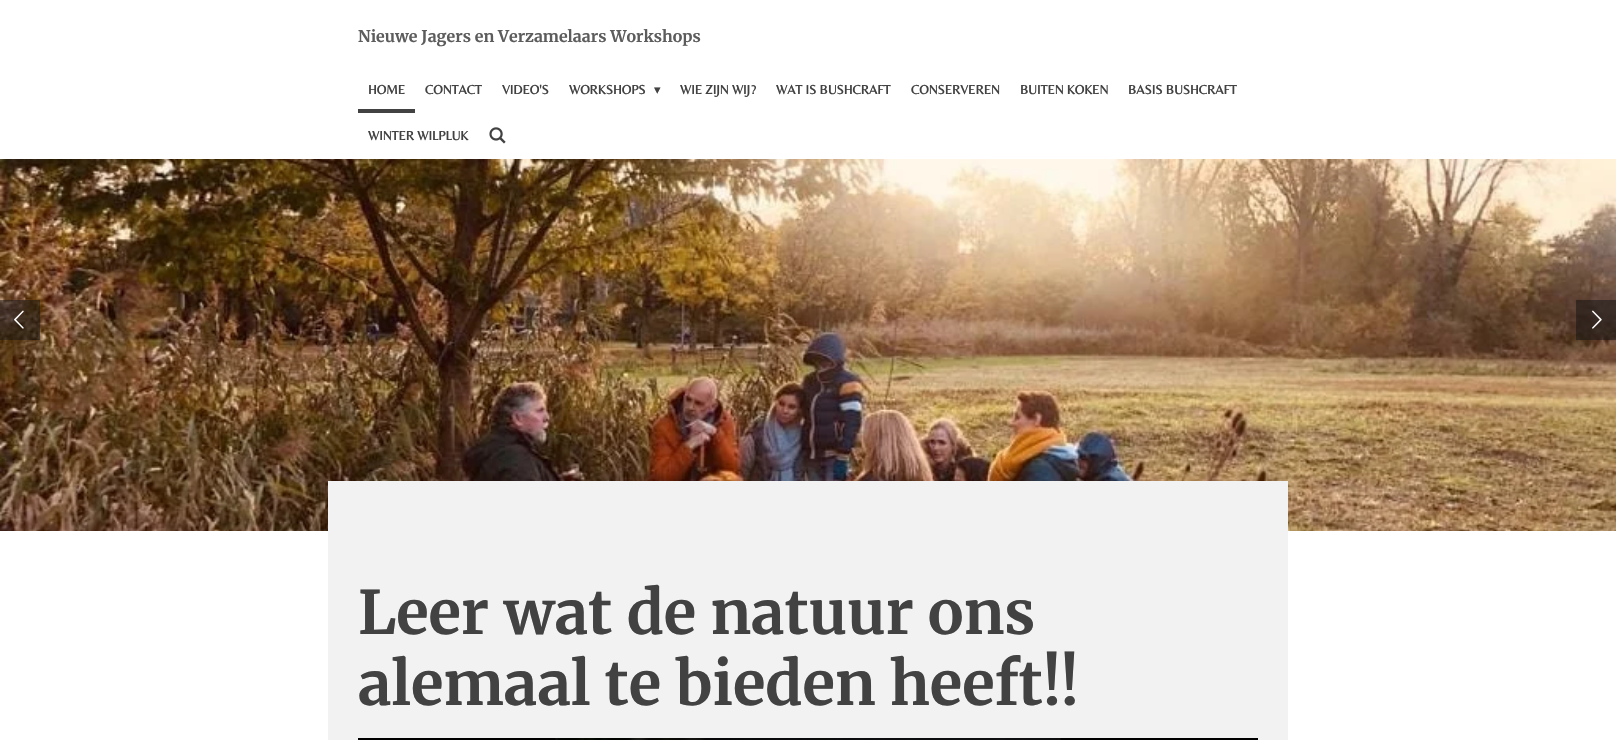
#include "include/core/SkBlurTypes.h"
#include "include/core/SkCanvas.h"
#include "include/core/SkData.h"
#include "include/core/SkFont.h"
#include "include/core/SkFontMgr.h"
#include "include/core/SkImage.h"
#include "include/core/SkMaskFilter.h"
#include "include/core/SkPaint.h"
#include "include/core/SkPathBuilder.h"
#include "include/core/SkTextBlob.h"
#include "include/effects/SkDashPathEffect.h"
#include "include/effects/SkGradientShader.h"
#include "include/utils/SkParsePath.h"

extern sk_sp<SkFontMgr> fontMgr;

void draw(SkCanvas* canvas) {
  SkPaint p;
  p.setAntiAlias(true);
  canvas->clear(SK_ColorWHITE);
  p.setColor(SkColorSetRGB(66, 66, 66));
  canvas->drawRect(SkRect::MakeLTRB(358, 109, 415, 113), p);
  canvas->drawImageRect(SkImages::DeferredFromEncodedData(SkData::MakeFromFileName("images/1.png")), SkRect::MakeLTRB(489, 127, 506, 144), SkSamplingOptions());
  canvas->drawImageRect(SkImages::DeferredFromEncodedData(SkData::MakeFromFileName("images/2.png")), SkRect::MakeLTRB(0, 159, 1616, 531), SkSamplingOptions());
  p.setColor(SkColorSetARGB(128, 15, 15, 15));
  canvas->drawRect(SkRect::MakeLTRB(0, 300, 40, 340), p);
  canvas->drawImageRect(SkImages::DeferredFromEncodedData(SkData::MakeFromFileName("images/3.png")), SkRect::MakeLTRB(14, 310, 24, 329), SkSamplingOptions());
  canvas->drawRect(SkRect::MakeLTRB(1576, 300, 1616, 340), p);
  canvas->drawImageRect(SkImages::DeferredFromEncodedData(SkData::MakeFromFileName("images/4.png")), SkRect::MakeLTRB(1592, 310, 1602, 329), SkSamplingOptions());
  p.setColor(SkColorSetRGB(242, 242, 242));
  canvas->drawRect(SkRect::MakeLTRB(328, 481, 1288, 740), p);
  canvas->drawImageRect(SkImages::DeferredFromEncodedData(SkData::MakeFromFileName("images/5.png")), SkRect::MakeLTRB(358, 738, 1258, 740), SkSamplingOptions());
  SkFont font1(fontMgr->matchFamilyStyle("Merriweather", SkFontStyle(300, SkFontStyle::kNormal_Width, SkFontStyle::kUpright_Slant)), 16);
  font1.setSubpixel(true);
  p.setColor(SkColorSetRGB(92, 92, 92));
  canvas->drawString("Nieuwe Jagers en Verzamelaars Workshops", 358, 42, font1, p);
  SkFont font2(fontMgr->matchFamilyStyle("Belleza", SkFontStyle::Bold()), 13);
  font2.setSubpixel(true);
  p.setColor(SkColorSetRGB(66, 66, 66));
  canvas->drawString("HOME", 368, 94, font2, p);
  canvas->drawString("CONTACT", 425, 94, font2, p);
  canvas->drawString("VIDEO'S", 502, 94, font2, p);
  canvas->drawString("WORKSHOPS", 569, 94, font2, p);
  SkFont font3(fontMgr->matchFamilyStyle("DejaVu Sans", SkFontStyle::Normal()), 13);
  font3.setSubpixel(true);
  canvas->drawString("▾", 654, 94, font3, p);
  canvas->drawString("WIE ZIJN WIJ?", 680, 94, font2, p);
  canvas->drawString("WAT IS BUSHCRAFT", 776, 94, font2, p);
  canvas->drawString("CONSERVEREN", 911, 94, font2, p);
  canvas->drawString("BUITEN KOKEN", 1020, 94, font2, p);
  canvas->drawString("BASIS BUSHCRAFT", 1128, 94, font2, p);
  canvas->drawString("WINTER WILPLUK", 368, 140, font2, p);
  SkFont font4(fontMgr->matchFamilyStyle("Merriweather", SkFontStyle(300, SkFontStyle::kNormal_Width, SkFontStyle::kUpright_Slant)), 60);
  font4.setSubpixel(true);
  canvas->drawString("Leer wat de natuur ons", 358, 634, font4, p);
  canvas->drawString("alemaal te bieden heeft!!", 358, 705, font4, p);
}
